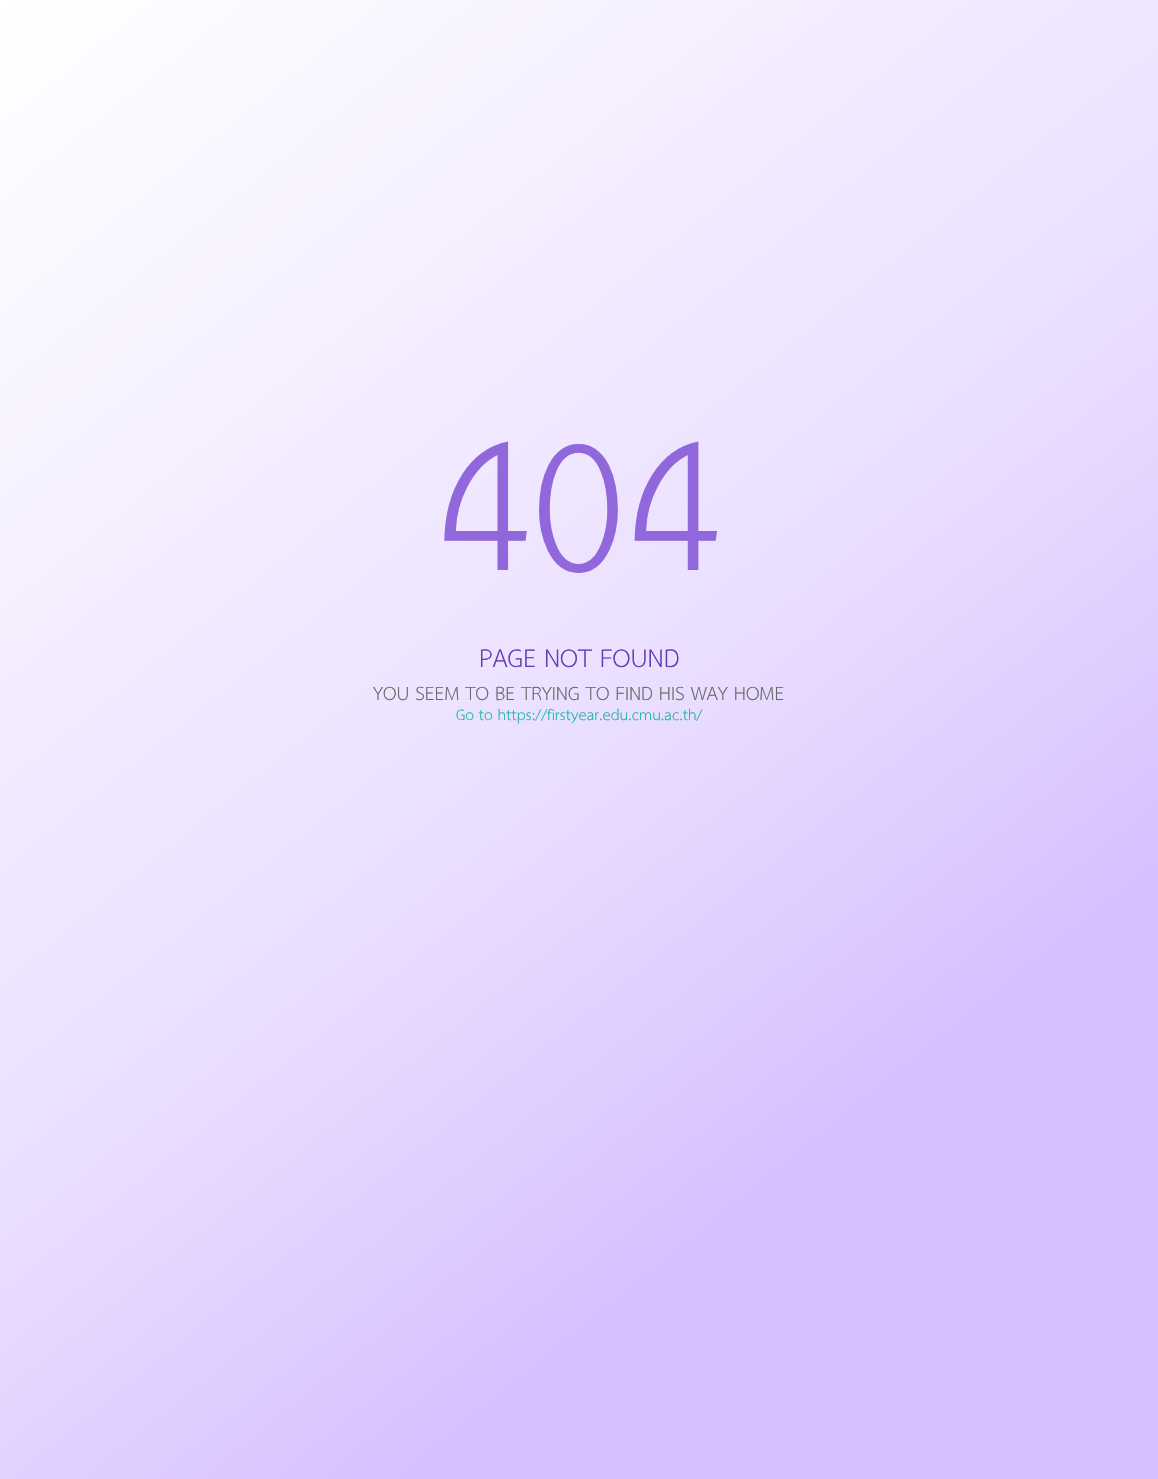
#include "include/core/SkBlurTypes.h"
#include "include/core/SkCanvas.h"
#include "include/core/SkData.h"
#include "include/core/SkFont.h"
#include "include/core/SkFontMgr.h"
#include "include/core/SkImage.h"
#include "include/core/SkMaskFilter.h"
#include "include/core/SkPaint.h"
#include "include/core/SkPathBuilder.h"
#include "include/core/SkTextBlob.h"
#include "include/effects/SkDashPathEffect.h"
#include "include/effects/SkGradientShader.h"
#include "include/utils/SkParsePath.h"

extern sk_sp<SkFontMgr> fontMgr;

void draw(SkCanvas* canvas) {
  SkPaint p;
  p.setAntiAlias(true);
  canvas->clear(SK_ColorWHITE);
  {
    const SkColor colors[] = {SK_ColorWHITE, SkColorSetRGB(234, 222, 255), SkColorSetRGB(215, 192, 255)};
    const float stops[] = {0, 0.51f, 0.75f};
    const SkPoint ends[] = {{-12, 10}, {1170, 1469}};
    p.setShader(SkGradientShader::MakeLinear(ends, colors, stops, 3, SkTileMode::kClamp));
    p.setAlpha(255);
  }
  canvas->drawRect(SkRect::MakeLTRB(0, 0, 1158, 1479), p);
  SkFont font1(fontMgr->matchFamilyStyle("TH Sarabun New", SkFontStyle::Normal()), 172);
  font1.setSubpixel(true);
  p.setShader(nullptr);
  p.setColor(SkColorSetRGB(145, 103, 220));
  canvas->drawString("404", 436, 570, font1, p);
  SkFont font2(fontMgr->matchFamilyStyle("TH Sarabun New", SkFontStyle::Normal()), 24);
  font2.setSubpixel(true);
  p.setColor(SkColorSetRGB(103, 58, 183));
  canvas->drawString("PAGE NOT FOUND", 479, 667, font2, p);
  SkFont font3(fontMgr->matchFamilyStyle("TH Sarabun New", SkFontStyle::Normal()), 18);
  font3.setSubpixel(true);
  p.setColor(SkColorSetRGB(105, 105, 105));
  canvas->drawString("YOU SEEM TO BE TRYING TO FIND HIS WAY HOME", 373, 700, font3, p);
  SkFont font4(fontMgr->matchFamilyStyle("TH Sarabun New", SkFontStyle::Normal()), 14.4f);
  font4.setSubpixel(true);
  p.setColor(SkColorSetRGB(22, 181, 167));
  canvas->drawString("Go to https://firstyear.edu.cmu.ac.th/", 456, 720, font4, p);
}
